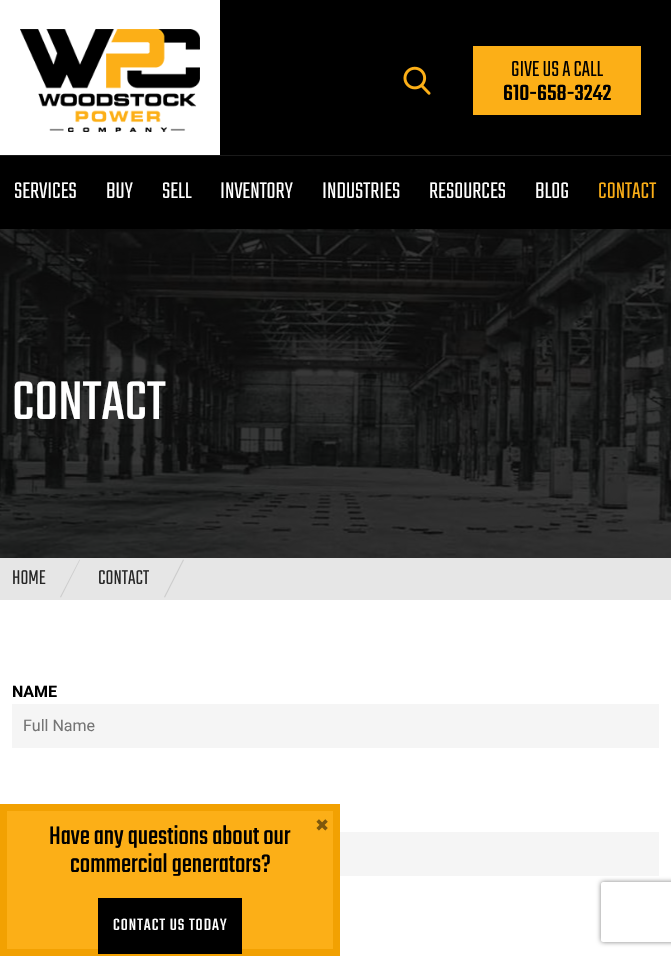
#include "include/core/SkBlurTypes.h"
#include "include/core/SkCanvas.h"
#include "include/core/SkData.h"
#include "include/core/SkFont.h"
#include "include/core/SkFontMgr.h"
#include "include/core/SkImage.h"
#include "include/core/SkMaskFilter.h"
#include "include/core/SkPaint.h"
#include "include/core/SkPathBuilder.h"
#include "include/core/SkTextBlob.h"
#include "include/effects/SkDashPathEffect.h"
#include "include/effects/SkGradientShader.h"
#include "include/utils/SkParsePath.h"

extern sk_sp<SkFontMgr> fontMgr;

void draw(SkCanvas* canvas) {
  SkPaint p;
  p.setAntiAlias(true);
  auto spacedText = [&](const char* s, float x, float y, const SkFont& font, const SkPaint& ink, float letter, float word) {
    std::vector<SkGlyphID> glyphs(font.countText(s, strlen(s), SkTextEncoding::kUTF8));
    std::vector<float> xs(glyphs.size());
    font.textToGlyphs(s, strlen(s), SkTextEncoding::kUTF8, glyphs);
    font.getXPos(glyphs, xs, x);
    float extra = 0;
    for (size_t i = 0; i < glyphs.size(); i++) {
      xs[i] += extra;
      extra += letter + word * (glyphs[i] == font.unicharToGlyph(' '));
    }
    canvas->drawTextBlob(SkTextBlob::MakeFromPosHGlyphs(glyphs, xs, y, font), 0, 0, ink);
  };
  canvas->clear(SK_ColorWHITE);
  p.setColor(SK_ColorBLACK);
  canvas->drawRect(SkRect::MakeLTRB(0, 0, 671, 229), p);
  p.setColor(SK_ColorWHITE);
  canvas->drawRect(SkRect::MakeLTRB(0, 0, 220, 155), p);
  canvas->drawImageRect(SkImages::DeferredFromEncodedData(SkData::MakeFromFileName("images/1.png")), SkRect::MakeLTRB(20, 29, 200, 132), SkSamplingOptions());
  canvas->drawImageRect(SkImages::DeferredFromEncodedData(SkData::MakeFromFileName("images/2.png")), SkRect::MakeLTRB(403, 66, 431, 95), SkSamplingOptions());
  p.setColor(SkColorSetRGB(252, 175, 23));
  canvas->drawRect(SkRect::MakeLTRB(473, 46, 641, 115), p);
  p.setColor(SkColorSetRGB(26, 26, 26));
  canvas->drawRect(SkRect::MakeLTRB(0, 155, 671, 156), p);
  canvas->drawImageRect(SkImages::DeferredFromEncodedData(SkData::MakeFromFileName("images/3.png")), SkRect::MakeLTRB(0, 229, 671, 558), SkSamplingOptions());
  p.setColor(SkColorSetRGB(230, 230, 230));
  canvas->drawRect(SkRect::MakeLTRB(0, 558, 671, 600), p);
  p.setColor(SkColorSetRGB(205, 205, 205));
  canvas->drawPath(SkPathBuilder().moveTo(79.5f, 559.5f).lineTo(80, 560).lineTo(61, 597.5f).lineTo(60, 597).close().detach(), p);
  canvas->drawPath(SkPathBuilder().moveTo(183, 559.5f).lineTo(184, 560).lineTo(165, 597.5f).lineTo(164, 597).close().detach(), p);
  p.setColor(SkColorSetRGB(245, 245, 245));
  canvas->drawRect(SkRect::MakeLTRB(12, 704, 659, 748), p);
  canvas->drawRect(SkRect::MakeLTRB(340, 832, 659, 876), p);
  p.setColor(SkColorSetRGB(252, 175, 23));
  canvas->drawRect(SkRect::MakeLTRB(3.5f, 807.5f, 336.5f, 952.5f), p);
  p.setStyle(SkPaint::kStroke_Style);
  p.setStrokeWidth(7);
  p.setColor(SkColorSetRGB(242, 161, 2));
  canvas->drawRect(SkRect::MakeLTRB(3.5f, 807.5f, 336.5f, 952.5f), p);
  p.setStyle(SkPaint::kFill_Style);
  p.setColor(SK_ColorBLACK);
  canvas->drawRect(SkRect::MakeLTRB(98, 898, 242, 954), p);
  canvas->save();
  canvas->clipPath(SkPathBuilder(SkPathFillType::kEvenOdd).moveTo(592, 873).lineTo(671, 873).lineTo(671, 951).lineTo(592, 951).close().moveTo(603, 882).lineTo(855, 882).cubicTo(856, 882, 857, 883, 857, 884).lineTo(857, 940).cubicTo(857, 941, 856, 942, 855, 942).lineTo(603, 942).cubicTo(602, 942, 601, 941, 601, 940).lineTo(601, 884).cubicTo(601, 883, 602, 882, 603, 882).close().detach(), true);
  p.setColor(SkColorSetRGB(128, 128, 128));
  p.setMaskFilter(SkMaskFilter::MakeBlur(kNormal_SkBlurStyle, 2.5f));
  canvas->drawRoundRect(SkRect::MakeLTRB(601, 882, 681, 942), 2, 2, p);
  p.setMaskFilter(nullptr);
  canvas->restore();
  SkFont font1(fontMgr->matchFamilyStyle("Teko", SkFontStyle(300, SkFontStyle::kNormal_Width, SkFontStyle::kUpright_Slant)), 24);
  font1.setSubpixel(true);
  p.setColor(SK_ColorBLACK);
  canvas->drawString("GIVE US A CALL", 511, 76, font1, p);
  SkFont font2(fontMgr->matchFamilyStyle("Teko", SkFontStyle(500, SkFontStyle::kNormal_Width, SkFontStyle::kUpright_Slant)), 24);
  font2.setSubpixel(true);
  canvas->drawString("610-658-3242", 503, 100, font2, p);
  SkFont font3(fontMgr->matchFamilyStyle("Teko", SkFontStyle(300, SkFontStyle::kNormal_Width, SkFontStyle::kUpright_Slant)), 25);
  font3.setSubpixel(true);
  p.setColor(SK_ColorWHITE);
  canvas->drawString("SERVICES", 14, 198, font3, p);
  canvas->drawString("BUY", 106, 198, font3, p);
  canvas->drawString("SELL", 162, 198, font3, p);
  canvas->drawString("INVENTORY", 220, 198, font3, p);
  canvas->drawString("INDUSTRIES", 322, 198, font3, p);
  canvas->drawString("RESOURCES", 429, 198, font3, p);
  canvas->drawString("BLOG", 535, 198, font3, p);
  p.setColor(SkColorSetRGB(252, 175, 23));
  canvas->drawString("CONTACT", 598, 198, font3, p);
  SkFont font4(fontMgr->matchFamilyStyle("Teko", SkFontStyle::Normal()), 60);
  font4.setSubpixel(true);
  p.setColor(SK_ColorWHITE);
  canvas->drawString("CONTACT", 12, 419, font4, p);
  SkFont font5(fontMgr->matchFamilyStyle("Teko", SkFontStyle(300, SkFontStyle::kNormal_Width, SkFontStyle::kUpright_Slant)), 22);
  font5.setSubpixel(true);
  p.setColor(SkColorSetRGB(38, 38, 38));
  canvas->drawString("HOME", 12, 584, font5, p);
  canvas->drawString("CONTACT", 98, 584, font5, p);
  SkFont font6(fontMgr->matchFamilyStyle("Roboto", SkFontStyle::Bold()), 16);
  font6.setSubpixel(true);
  p.setColor(SK_ColorBLACK);
  canvas->drawString("NAME", 12, 697, font6, p);
  SkFont font7(fontMgr->matchFamilyStyle("Roboto", SkFontStyle::Normal()), 16);
  font7.setSubpixel(true);
  p.setColor(SkColorSetRGB(117, 117, 117));
  canvas->drawString("Full Name", 23, 731, font7, p);
  SkFont font8(fontMgr->matchFamilyStyle("Teko", SkFontStyle::Normal()), 28);
  font8.setSubpixel(true);
  p.setColor(SK_ColorBLACK);
  canvas->drawString("Have any questions about our", 49, 844, font8, p);
  canvas->drawString("commercial generators?", 70, 872, font8, p);
  SkFont font9(fontMgr->matchFamilyStyle("Teko", SkFontStyle::Normal()), 18);
  font9.setSubpixel(true);
  p.setColor(SK_ColorWHITE);
  spacedText("CONTACT US TODAY", 113, 930, font9, p, 1, 0);
  SkFont font10(fontMgr->matchFamilyStyle("Teko", SkFontStyle::Bold()), 28);
  font10.setSubpixel(true);
  p.setColor(SkColorSetRGB(126, 88, 12));
  canvas->drawString("×", 316, 834, font10, p);
}
